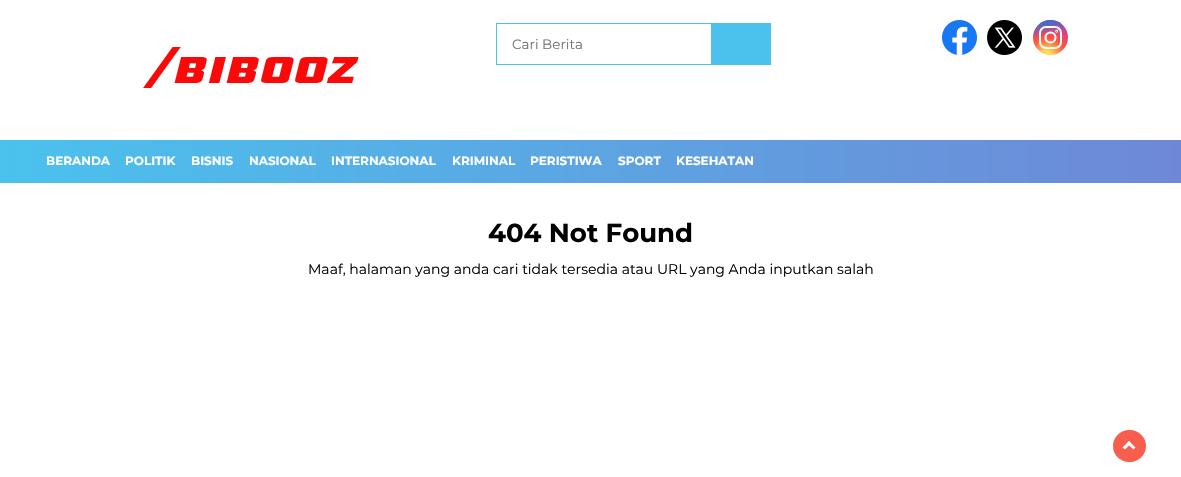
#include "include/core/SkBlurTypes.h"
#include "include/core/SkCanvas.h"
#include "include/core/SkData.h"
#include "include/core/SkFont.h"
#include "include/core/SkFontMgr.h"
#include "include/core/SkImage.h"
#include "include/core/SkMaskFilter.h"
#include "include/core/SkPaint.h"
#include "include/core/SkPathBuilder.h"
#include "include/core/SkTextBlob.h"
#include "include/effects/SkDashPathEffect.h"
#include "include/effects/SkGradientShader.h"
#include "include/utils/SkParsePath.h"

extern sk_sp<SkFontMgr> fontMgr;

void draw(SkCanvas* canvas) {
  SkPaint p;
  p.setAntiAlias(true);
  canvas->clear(SK_ColorWHITE);
  p.setStyle(SkPaint::kStroke_Style);
  p.setStrokeWidth(1);
  p.setColor(SkColorSetRGB(74, 194, 237));
  canvas->drawRect(SkRect::MakeLTRB(496.5f, 23.5f, 711.5f, 64.5f), p);
  p.setStyle(SkPaint::kFill_Style);
  canvas->drawRect(SkRect::MakeLTRB(712, 23, 771, 65), p);
  canvas->drawImageRect(SkImages::DeferredFromEncodedData(SkData::MakeFromFileName("images/1.png")), SkRect::MakeLTRB(942, 20, 977, 55), SkSamplingOptions());
  canvas->drawImageRect(SkImages::DeferredFromEncodedData(SkData::MakeFromFileName("images/2.png")), SkRect::MakeLTRB(987, 20, 1022, 55), SkSamplingOptions());
  {
    const SkColor colors[] = {SkColorSetRGB(255, 221, 85), SkColorSetRGB(255, 84, 62), SkColorSetRGB(200, 55, 171)};
    const float stops[] = {0.1f, 0.5f, 1};
    p.setShader(SkGradientShader::MakeRadial({1047, 55}, 35, colors, stops, 3, SkTileMode::kClamp));
    p.setAlpha(255);
  }
  canvas->drawCircle(1050.5f, 37.5f, 17.5f, p);
  {
    const SkColor colors[] = {SkColorSetRGB(55, 113, 200), SkColorSetARGB(0, 55, 113, 200)};
    const float stops[] = {0.1f, 0.5f};
    const SkPoint ends[] = {{1033, 20}, {1040, 55}};
    p.setShader(SkGradientShader::MakeLinear(ends, colors, stops, 2, SkTileMode::kClamp));
    p.setAlpha(255);
  }
  canvas->drawCircle(1050.5f, 37.5f, 17.5f, p);
  p.setStyle(SkPaint::kStroke_Style);
  p.setStrokeWidth(2);
  p.setShader(nullptr);
  p.setColor(SK_ColorWHITE);
  canvas->drawRoundRect(SkRect::MakeLTRB(1040, 27, 1061, 48), 6, 6, p);
  p.setStrokeWidth(2.1f);
  canvas->drawCircle(1050.5f, 37.5f, 5, p);
  canvas->drawCircle(1056.7f, 31.3f, 0.4f, p);
  canvas->drawImageRect(SkImages::DeferredFromEncodedData(SkData::MakeFromFileName("images/3.png")), SkRect::MakeLTRB(143, 47, 359, 88), SkSamplingOptions());
  p.setStyle(SkPaint::kFill_Style);
  {
    const SkColor colors[] = {SkColorSetRGB(74, 194, 237), SkColorSetRGB(110, 136, 215)};
    const float stops[] = {0, 1};
    const SkPoint ends[] = {{0, 162}, {1181, 161}};
    p.setShader(SkGradientShader::MakeLinear(ends, colors, stops, 2, SkTileMode::kClamp));
    p.setAlpha(255);
  }
  canvas->drawRect(SkRect::MakeLTRB(0, 140, 1181, 183), p);
  p.setShader(nullptr);
  p.setColor(SkColorSetRGB(248, 93, 77));
  canvas->drawRoundRect(SkRect::MakeLTRB(1113, 430, 1146, 462), 16, 16, p);
  p.setColor(SK_ColorWHITE);
  canvas->drawPath(SkPathBuilder().moveTo(1125, 449.5f).lineTo(1122.5f, 447.5f).lineTo(1129, 441).lineTo(1131, 443.5f).close().detach(), p);
  canvas->drawPath(SkPathBuilder().moveTo(1133.5f, 449.5f).lineTo(1127, 443.5f).lineTo(1129, 441).lineTo(1135.5f, 447.5f).close().detach(), p);
  SkFont font1(fontMgr->matchFamilyStyle("Montserrat", SkFontStyle::Normal()), 13.5f);
  font1.setSubpixel(true);
  p.setColor(SkColorSetRGB(117, 117, 117));
  canvas->drawString("Cari Berita", 512, 49, font1, p);
  SkFont font2(fontMgr->matchFamilyStyle("Montserrat", SkFontStyle::Bold()), 12);
  font2.setSubpixel(true);
  p.setColor(SK_ColorWHITE);
  canvas->drawString("BERANDA", 46, 165, font2, p);
  canvas->drawString("POLITIK", 125, 165, font2, p);
  canvas->drawString("BISNIS", 191, 165, font2, p);
  canvas->drawString("NASIONAL", 249, 165, font2, p);
  canvas->drawString("INTERNASIONAL", 331, 165, font2, p);
  canvas->drawString("KRIMINAL", 452, 165, font2, p);
  canvas->drawString("PERISTIWA", 530, 165, font2, p);
  canvas->drawString("SPORT", 618, 165, font2, p);
  canvas->drawString("KESEHATAN", 676, 165, font2, p);
  SkFont font3(fontMgr->matchFamilyStyle("Montserrat", SkFontStyle::Bold()), 26);
  font3.setSubpixel(true);
  p.setColor(SK_ColorBLACK);
  canvas->drawString("404 Not Found", 488, 242, font3, p);
  SkFont font4(fontMgr->matchFamilyStyle("Montserrat", SkFontStyle::Normal()), 14);
  font4.setSubpixel(true);
  canvas->drawString("Maaf, halaman yang anda cari tidak tersedia atau URL yang Anda inputkan salah", 308, 274, font4, p);
}
